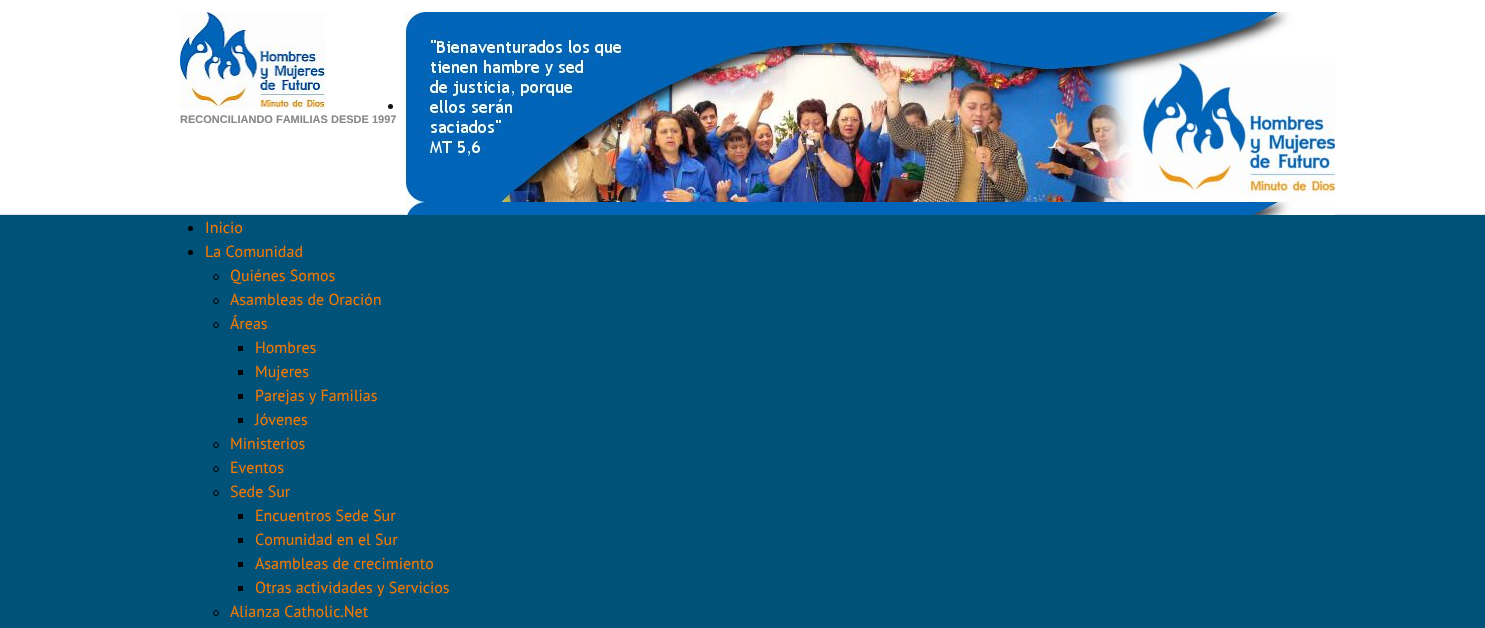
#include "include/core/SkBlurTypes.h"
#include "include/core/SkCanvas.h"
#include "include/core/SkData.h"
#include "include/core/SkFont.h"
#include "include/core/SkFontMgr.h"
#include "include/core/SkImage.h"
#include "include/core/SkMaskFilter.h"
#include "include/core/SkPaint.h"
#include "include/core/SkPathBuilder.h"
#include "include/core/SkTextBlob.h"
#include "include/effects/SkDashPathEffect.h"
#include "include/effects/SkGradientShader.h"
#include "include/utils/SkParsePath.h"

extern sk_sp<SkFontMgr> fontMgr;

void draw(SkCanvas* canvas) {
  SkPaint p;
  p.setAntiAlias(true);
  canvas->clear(SK_ColorWHITE);
  p.setColor(SkColorSetRGB(224, 224, 224));
  canvas->drawRect(SkRect::MakeLTRB(0, 214, 1485, 215), p);
  canvas->drawImageRect(SkImages::DeferredFromEncodedData(SkData::MakeFromFileName("images/1.png")), SkRect::MakeLTRB(180, 12, 326, 109), SkSamplingOptions());
  p.setColor(SkColorSetRGB(18, 18, 18));
  canvas->drawCircle(390.5f, 106.5f, 2.5f, p);
  canvas->drawImageRect(SkImages::DeferredFromEncodedData(SkData::MakeFromFileName("images/2.png")), SkRect::MakeLTRB(405, 12, 1335, 202), SkSamplingOptions());
  canvas->drawImageRect(SkImages::DeferredFromEncodedData(SkData::MakeFromFileName("images/3.png")), SkRect::MakeLTRB(405, 202, 1335, 215), SkSamplingOptions());
  p.setColor(SkColorSetRGB(1, 82, 120));
  canvas->drawRect(SkRect::MakeLTRB(0, 215, 1485, 628), p);
  p.setColor(SK_ColorBLACK);
  canvas->drawCircle(190.5f, 228.5f, 2.5f, p);
  canvas->drawCircle(190.5f, 252.5f, 2.5f, p);
  p.setStyle(SkPaint::kStroke_Style);
  p.setStrokeWidth(1);
  canvas->drawCircle(216, 277, 2.5f, p);
  canvas->drawCircle(216, 301, 2.5f, p);
  canvas->drawCircle(216, 325, 2.5f, p);
  p.setStyle(SkPaint::kFill_Style);
  canvas->drawRect(SkRect::MakeLTRB(238, 346, 243, 351), p);
  canvas->drawRect(SkRect::MakeLTRB(238, 370, 243, 375), p);
  canvas->drawRect(SkRect::MakeLTRB(238, 394, 243, 399), p);
  canvas->drawRect(SkRect::MakeLTRB(238, 418, 243, 423), p);
  p.setStyle(SkPaint::kStroke_Style);
  canvas->drawCircle(216, 445, 2.5f, p);
  canvas->drawCircle(216, 469, 2.5f, p);
  canvas->drawCircle(216, 493, 2.5f, p);
  p.setStyle(SkPaint::kFill_Style);
  canvas->drawRect(SkRect::MakeLTRB(238, 514, 243, 519), p);
  canvas->drawRect(SkRect::MakeLTRB(238, 538, 243, 543), p);
  canvas->drawRect(SkRect::MakeLTRB(238, 562, 243, 567), p);
  canvas->drawRect(SkRect::MakeLTRB(238, 586, 243, 591), p);
  p.setStyle(SkPaint::kStroke_Style);
  canvas->drawCircle(216, 613, 2.5f, p);
  SkFont font1(fontMgr->matchFamilyStyle("Liberation Sans", SkFontStyle::Bold()), 11);
  font1.setSubpixel(true);
  p.setStyle(SkPaint::kFill_Style);
  p.setColor(SkColorSetRGB(136, 136, 136));
  canvas->drawString("RECONCILIANDO FAMILIAS DESDE 1997", 180, 123, font1, p);
  SkFont font2(fontMgr->matchFamilyStyle("PT Sans", SkFontStyle::Normal()), 16);
  font2.setSubpixel(true);
  p.setColor(SkColorSetRGB(240, 121, 3));
  canvas->drawString("Inicio", 205, 233, font2, p);
  canvas->drawString("La Comunidad", 205, 257, font2, p);
  canvas->drawString("Quiénes Somos", 230, 281, font2, p);
  canvas->drawString("Asambleas de Oración", 230, 305, font2, p);
  canvas->drawString("Áreas", 230, 329, font2, p);
  canvas->drawString("Hombres", 255, 353, font2, p);
  canvas->drawString("Mujeres", 255, 377, font2, p);
  canvas->drawString("Parejas y Familias", 255, 401, font2, p);
  canvas->drawString("Jóvenes", 255, 425, font2, p);
  canvas->drawString("Ministerios", 230, 449, font2, p);
  canvas->drawString("Eventos", 230, 473, font2, p);
  canvas->drawString("Sede Sur", 230, 497, font2, p);
  canvas->drawString("Encuentros Sede Sur", 255, 521, font2, p);
  canvas->drawString("Comunidad en el Sur", 255, 545, font2, p);
  canvas->drawString("Asambleas de crecimiento", 255, 569, font2, p);
  canvas->drawString("Otras actividades y Servicios", 255, 593, font2, p);
  canvas->drawString("Alianza Catholic.Net", 230, 617, font2, p);
}
